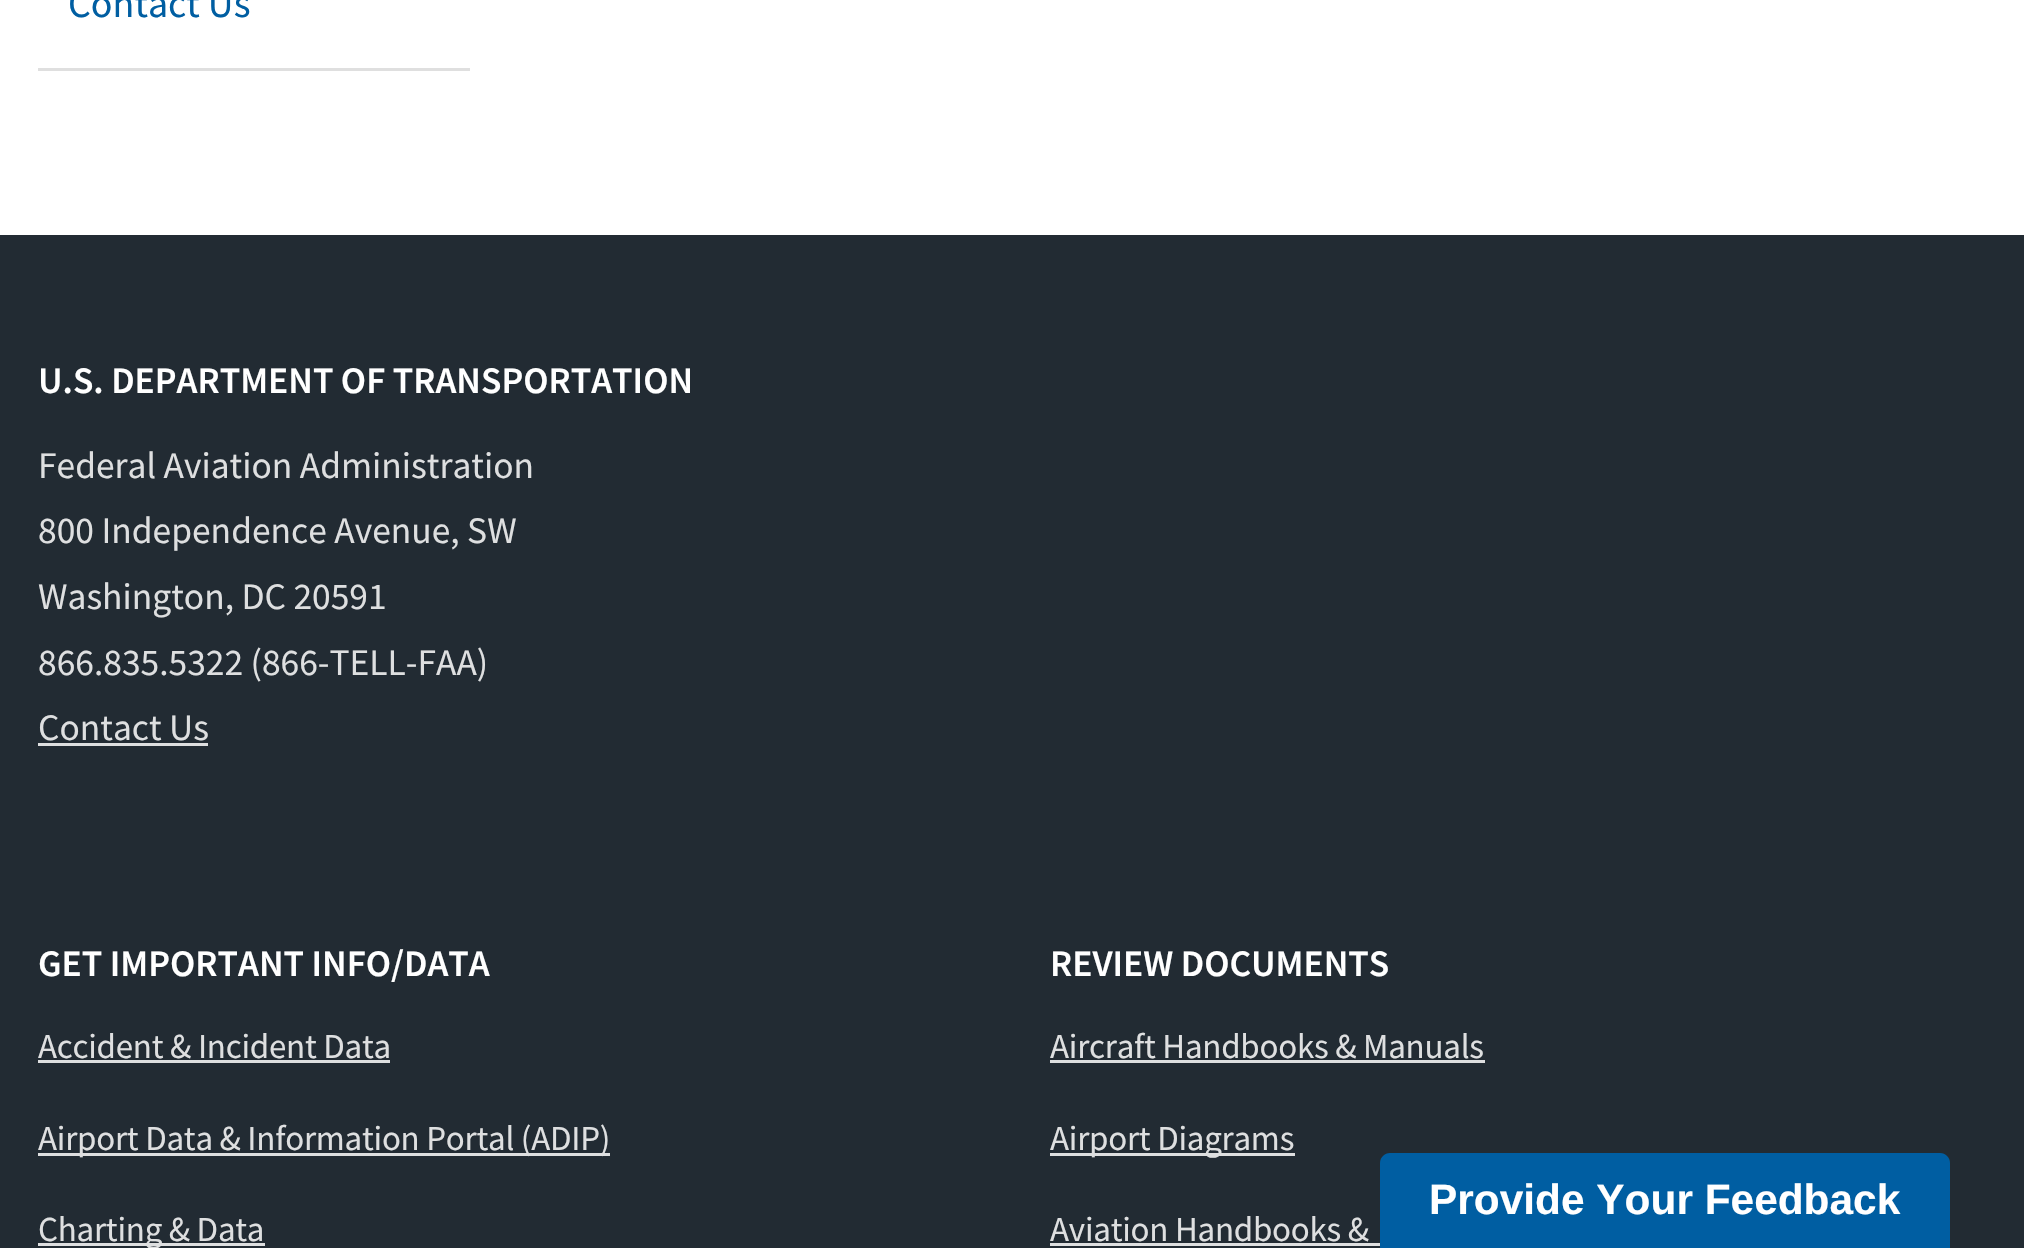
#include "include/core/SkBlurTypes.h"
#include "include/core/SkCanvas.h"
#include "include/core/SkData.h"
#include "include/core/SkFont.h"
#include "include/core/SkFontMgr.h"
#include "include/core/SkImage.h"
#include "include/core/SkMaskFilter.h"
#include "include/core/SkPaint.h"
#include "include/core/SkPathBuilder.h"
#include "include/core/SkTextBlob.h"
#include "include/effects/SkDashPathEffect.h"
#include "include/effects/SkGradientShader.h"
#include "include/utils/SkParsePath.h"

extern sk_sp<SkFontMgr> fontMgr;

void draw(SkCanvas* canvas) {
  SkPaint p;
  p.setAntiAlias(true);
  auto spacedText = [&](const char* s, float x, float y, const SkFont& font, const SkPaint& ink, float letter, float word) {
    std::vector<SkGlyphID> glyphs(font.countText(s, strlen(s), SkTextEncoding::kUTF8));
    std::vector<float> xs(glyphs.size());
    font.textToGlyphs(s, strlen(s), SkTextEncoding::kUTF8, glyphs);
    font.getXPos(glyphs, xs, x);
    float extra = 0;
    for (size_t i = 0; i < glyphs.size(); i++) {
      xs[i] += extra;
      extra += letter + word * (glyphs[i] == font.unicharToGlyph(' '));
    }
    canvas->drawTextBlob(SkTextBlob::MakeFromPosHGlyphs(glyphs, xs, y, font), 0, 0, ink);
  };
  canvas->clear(SK_ColorWHITE);
  p.setColor(SkColorSetRGB(223, 223, 223));
  canvas->drawRect(SkRect::MakeLTRB(38, 68, 470, 71), p);
  p.setColor(SkColorSetRGB(34, 43, 51));
  canvas->drawRect(SkRect::MakeLTRB(0, 235, 2024, 1248), p);
  p.setColor(SkColorSetRGB(222, 223, 224));
  canvas->drawRect(SkRect::MakeLTRB(38, 743, 208, 746), p);
  canvas->drawRect(SkRect::MakeLTRB(38, 1060, 390, 1063), p);
  canvas->drawRect(SkRect::MakeLTRB(38, 1153, 610, 1156), p);
  canvas->drawRect(SkRect::MakeLTRB(38, 1243, 265, 1246), p);
  canvas->drawRect(SkRect::MakeLTRB(1050, 1060, 1485, 1063), p);
  canvas->drawRect(SkRect::MakeLTRB(1050, 1153, 1295, 1156), p);
  canvas->drawRect(SkRect::MakeLTRB(1050, 1243, 1380, 1246), p);
  p.setColor(SkColorSetRGB(0, 94, 162));
  canvas->drawPath(SkPathBuilder().moveTo(1390, 1153).lineTo(1940, 1153).cubicTo(1945.5f, 1153, 1950, 1157.5f, 1950, 1163).lineTo(1950, 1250).lineTo(1380, 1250).lineTo(1380, 1163).cubicTo(1380, 1157.5f, 1384.5f, 1153, 1390, 1153).close().detach(), p);
  SkFont font1(fontMgr->matchFamilyStyle("Source Sans Pro", SkFontStyle::Normal()), 40);
  font1.setSubpixel(true);
  canvas->drawString("Contact Us", 68, 17, font1, p);
  SkFont font2(fontMgr->matchFamilyStyle("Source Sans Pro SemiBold", SkFontStyle(600, SkFontStyle::kNormal_Width, SkFontStyle::kUpright_Slant)), 37.5f);
  font2.setSubpixel(true);
  p.setColor(SK_ColorWHITE);
  canvas->drawString("U.S. DEPARTMENT OF TRANSPORTATION", 38, 393, font2, p);
  SkFont font3(fontMgr->matchFamilyStyle("Source Sans Pro", SkFontStyle::Normal()), 37.5f);
  font3.setSubpixel(true);
  p.setColor(SkColorSetRGB(222, 223, 224));
  canvas->drawString("Federal Aviation Administration", 38, 478, font3, p);
  canvas->drawString("800 Independence Avenue, SW", 38, 543, font3, p);
  canvas->drawString("Washington, DC 20591", 38, 609, font3, p);
  canvas->drawString("866.835.5322 (866-TELL-FAA)", 38, 675, font3, p);
  canvas->drawString("Contact Us", 38, 740, font3, p);
  p.setColor(SK_ColorWHITE);
  canvas->drawString("GET IMPORTANT INFO/DATA", 38, 976, font2, p);
  SkFont font4(fontMgr->matchFamilyStyle("Source Sans Pro", SkFontStyle::Normal()), 35);
  font4.setSubpixel(true);
  p.setColor(SkColorSetRGB(222, 223, 224));
  spacedText("Accident & Incident Data", 38, 1058, font4, p, -0.25f, 0);
  spacedText("Airport Data & Information Portal (ADIP)", 38, 1150, font4, p, -0.25f, 0);
  spacedText("Charting & Data", 38, 1241, font4, p, -0.25f, 0);
  p.setColor(SK_ColorWHITE);
  canvas->drawString("REVIEW DOCUMENTS", 1050, 976, font2, p);
  p.setColor(SkColorSetRGB(222, 223, 224));
  spacedText("Aircraft Handbooks & Manuals", 1050, 1058, font4, p, -0.25f, 0);
  spacedText("Airport Diagrams", 1050, 1150, font4, p, -0.25f, 0);
  spacedText("Aviation Handbooks &", 1050, 1241, font4, p, -0.25f, 0);
  SkFont font5(fontMgr->matchFamilyStyle("Liberation Sans", SkFontStyle::Bold()), 42.4f);
  font5.setSubpixel(true);
  p.setColor(SK_ColorWHITE);
  canvas->drawString("Provide Your Feedback", 1429, 1214, font5, p);
}
